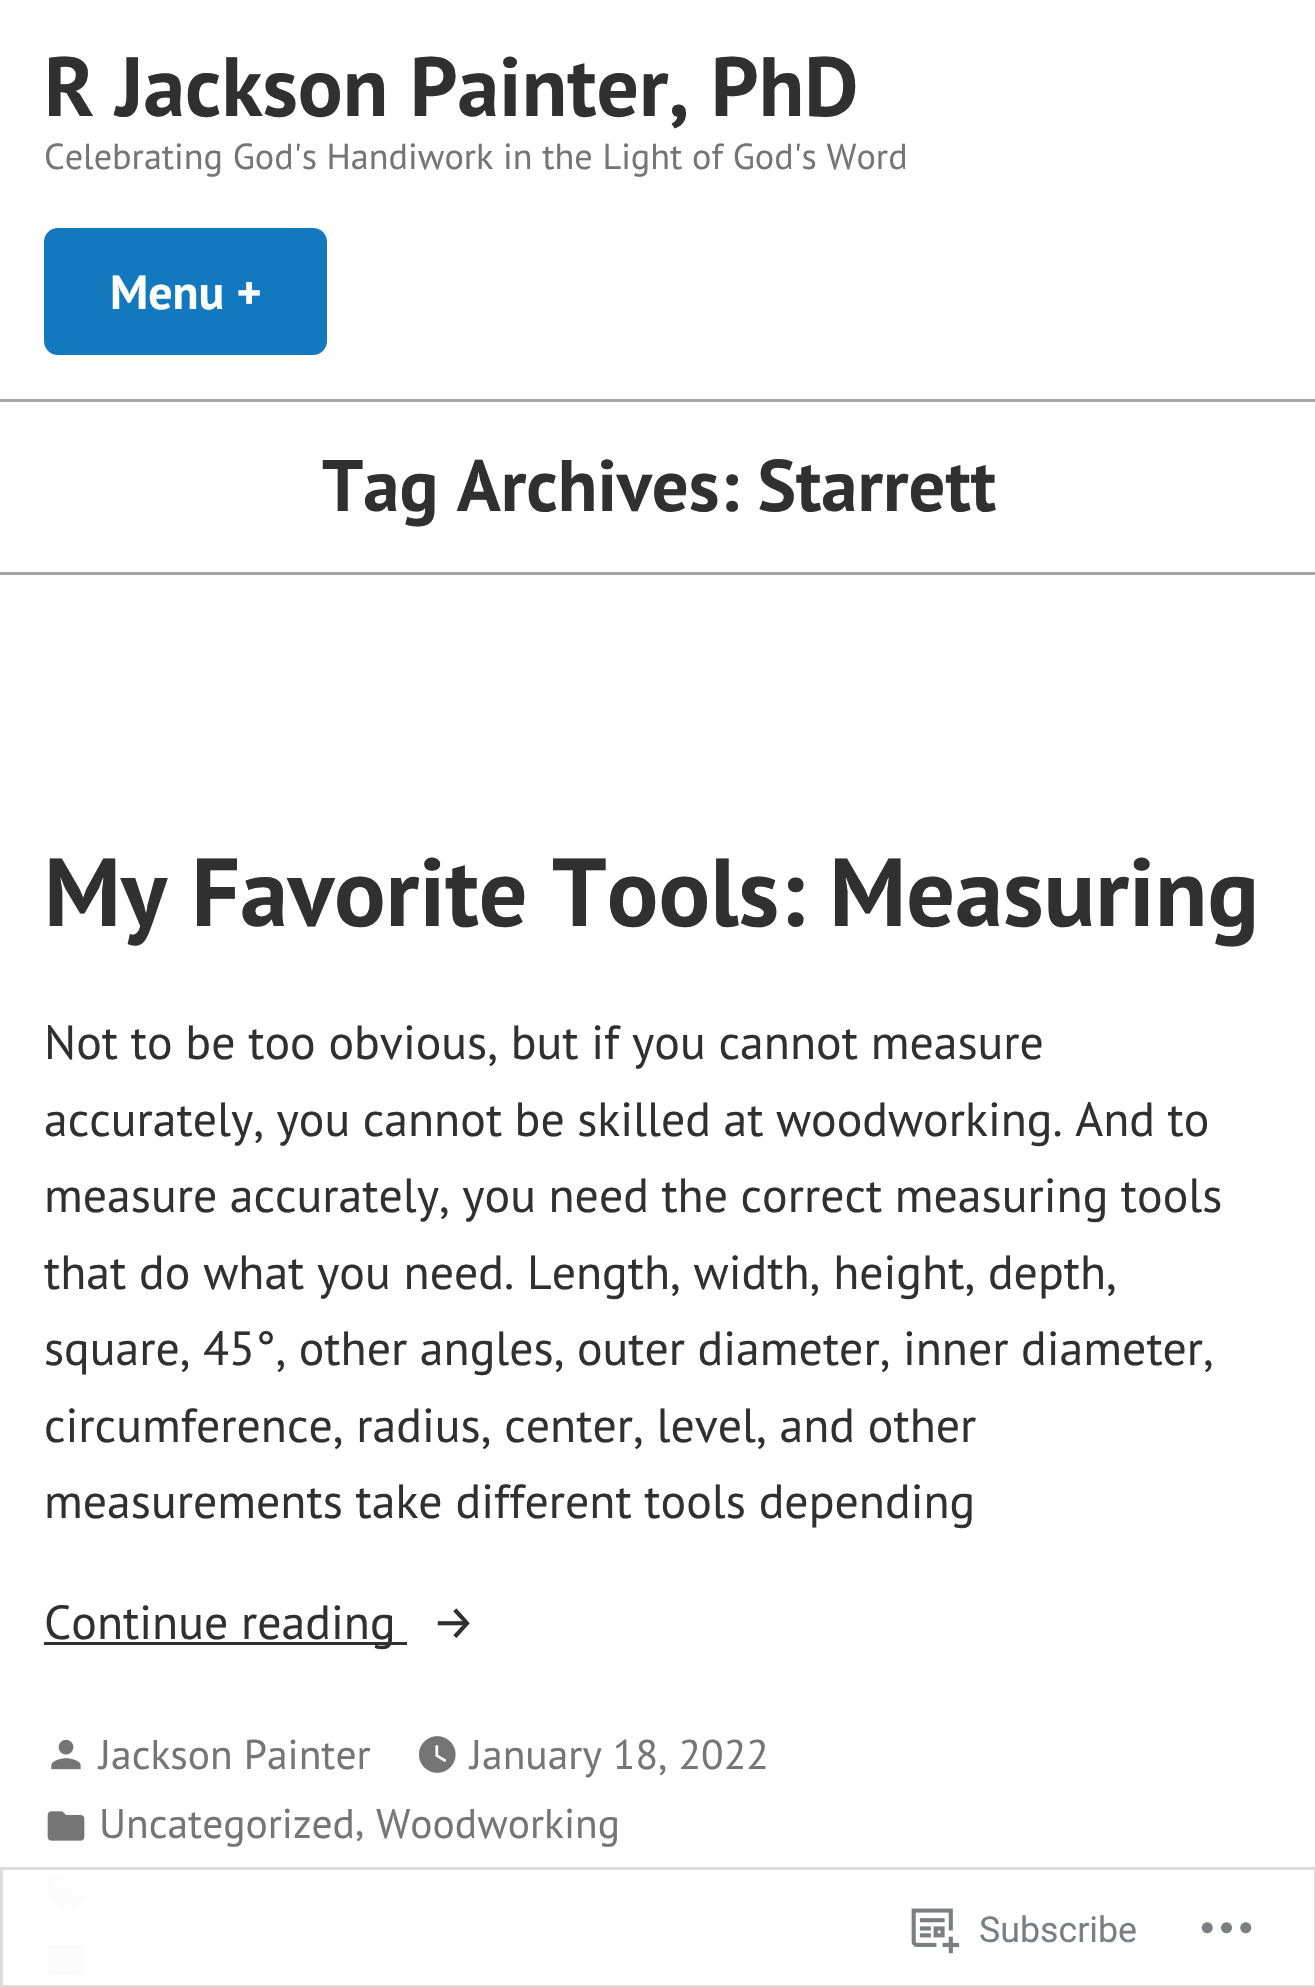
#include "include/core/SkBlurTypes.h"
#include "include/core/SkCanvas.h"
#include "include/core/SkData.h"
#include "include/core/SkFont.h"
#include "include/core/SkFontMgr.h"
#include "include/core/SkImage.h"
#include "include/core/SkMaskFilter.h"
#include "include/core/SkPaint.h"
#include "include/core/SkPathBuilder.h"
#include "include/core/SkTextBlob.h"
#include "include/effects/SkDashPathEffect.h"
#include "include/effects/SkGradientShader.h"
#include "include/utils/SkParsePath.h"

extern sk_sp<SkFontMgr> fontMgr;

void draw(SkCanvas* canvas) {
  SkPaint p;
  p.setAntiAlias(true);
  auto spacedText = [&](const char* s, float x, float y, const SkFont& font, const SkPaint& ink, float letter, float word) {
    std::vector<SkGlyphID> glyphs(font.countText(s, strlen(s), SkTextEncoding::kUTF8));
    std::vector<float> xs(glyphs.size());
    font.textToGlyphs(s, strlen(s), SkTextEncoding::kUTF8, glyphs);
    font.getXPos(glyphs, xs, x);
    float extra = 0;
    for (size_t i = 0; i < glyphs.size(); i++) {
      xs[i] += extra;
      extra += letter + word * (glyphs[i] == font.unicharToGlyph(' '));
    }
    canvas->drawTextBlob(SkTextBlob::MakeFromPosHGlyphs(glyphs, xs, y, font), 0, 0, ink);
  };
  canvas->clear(SK_ColorWHITE);
  p.setColor(SkColorSetRGB(18, 121, 190));
  canvas->drawRoundRect(SkRect::MakeLTRB(44, 228, 327, 355), 14, 14, p);
  p.setColor(SkColorSetRGB(165, 165, 165));
  canvas->drawRect(SkRect::MakeLTRB(0, 399, 1315, 402), p);
  canvas->drawRect(SkRect::MakeLTRB(0, 572, 1315, 575), p);
  p.setColor(SkColorSetRGB(48, 48, 48));
  canvas->drawRect(SkRect::MakeLTRB(44, 1642, 407, 1645), p);
  canvas->drawImageRect(SkImages::DeferredFromEncodedData(SkData::MakeFromFileName("images/1.png")), SkRect::MakeLTRB(51, 1739, 81, 1770), SkSamplingOptions());
  canvas->drawImageRect(SkImages::DeferredFromEncodedData(SkData::MakeFromFileName("images/2.png")), SkRect::MakeLTRB(418, 1736, 456, 1773), SkSamplingOptions());
  canvas->drawImageRect(SkImages::DeferredFromEncodedData(SkData::MakeFromFileName("images/3.png")), SkRect::MakeLTRB(47, 1811, 85, 1841), SkSamplingOptions());
  canvas->drawImageRect(SkImages::DeferredFromEncodedData(SkData::MakeFromFileName("images/4.png")), SkRect::MakeLTRB(47, 1876, 85, 1913), SkSamplingOptions());
  p.setColor(SkColorSetRGB(252, 252, 252));
  canvas->drawPath(SkPathBuilder().moveTo(84.5f, 1949).cubicTo(84.5f, 1947, 82.5f, 1945, 80.5f, 1945).lineTo(51.5f, 1945).cubicTo(49.5f, 1945, 47.5f, 1947, 47.5f, 1949).lineTo(47.5f, 1971).cubicTo(47.5f, 1973, 49.5f, 1974.5f, 51.5f, 1974.5f).lineTo(77, 1974.5f).lineTo(84.5f, 1982).close().detach(), p);
  p.setStyle(SkPaint::kStroke_Style);
  p.setStrokeWidth(3);
  p.setColor(SkColorSetRGB(221, 221, 223));
  canvas->drawRect(SkRect::MakeLTRB(1.5f, 1868.5f, 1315.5f, 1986.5f), p);
  canvas->drawImageRect(SkImages::DeferredFromEncodedData(SkData::MakeFromFileName("images/5.png")), SkRect::MakeLTRB(911, 1908, 960, 1954), SkSamplingOptions());
  canvas->drawImageRect(SkImages::DeferredFromEncodedData(SkData::MakeFromFileName("images/6.png")), SkRect::MakeLTRB(1201, 1922, 1252, 1934), SkSamplingOptions());
  SkFont font1(fontMgr->matchFamilyStyle("PT Sans", SkFontStyle::Bold()), 83.75f);
  font1.setSubpixel(true);
  p.setStyle(SkPaint::kFill_Style);
  p.setColor(SkColorSetRGB(48, 48, 48));
  canvas->drawString("R Jackson Painter, PhD", 44, 116, font1, p);
  SkFont font2(fontMgr->matchFamilyStyle("PT Sans", SkFontStyle::Normal()), 36.2f);
  font2.setSubpixel(true);
  p.setColor(SkColorSetRGB(117, 117, 117));
  canvas->drawString("Celebrating God's Handiwork in the Light of God's Word", 44, 169, font2, p);
  SkFont font3(fontMgr->matchFamilyStyle("PT Sans", SkFontStyle::Bold()), 47.8f);
  font3.setSubpixel(true);
  p.setColor(SK_ColorWHITE);
  canvas->drawString("Menu +", 110, 309, font3, p);
  SkFont font4(fontMgr->matchFamilyStyle("PT Sans", SkFontStyle::Bold()), 72.75f);
  font4.setSubpixel(true);
  p.setColor(SkColorSetRGB(48, 48, 48));
  canvas->drawString("Tag Archives: Starrett", 322, 511, font4, p);
  SkFont font5(fontMgr->matchFamilyStyle("PT Sans", SkFontStyle::Bold()), 96.25f);
  font5.setSubpixel(true);
  canvas->drawString("My Favorite Tools: Measuring", 44, 926, font5, p);
  SkFont font6(fontMgr->matchFamilyStyle("PT Sans", SkFontStyle::Normal()), 47.8f);
  font6.setSubpixel(true);
  canvas->drawString("Not to be too obvious, but if you cannot measure", 44, 1059, font6, p);
  spacedText("accurately, you cannot be skilled at woodworking. And to", 44, 1136, font6, p, 0, -0.25f);
  spacedText("measure accurately, you need the correct measuring tools", 44, 1212, font6, p, 0, -0.25f);
  canvas->drawString("that do what you need. Length, width, height, depth,", 44, 1289, font6, p);
  spacedText("square, 45°, other angles, outer diameter, inner diameter,", 44, 1365, font6, p, 0, -0.25f);
  canvas->drawString("circumference, radius, center, level, and other", 44, 1442, font6, p);
  canvas->drawString("measurements take different tools depending", 44, 1518, font6, p);
  canvas->drawString("Continue reading", 44, 1639, font6, p);
  SkFont font7(fontMgr->matchFamilyStyle("Fira Sans", SkFontStyle::Normal()), 47.8f);
  font7.setSubpixel(true);
  canvas->drawString("→", 432, 1639, font7, p);
  SkFont font8(fontMgr->matchFamilyStyle("PT Sans", SkFontStyle::Normal()), 41.5f);
  font8.setSubpixel(true);
  p.setColor(SkColorSetRGB(117, 117, 117));
  canvas->drawString("Jackson Painter", 99, 1769, font8, p);
  canvas->drawString("January 18, 2022", 470, 1769, font8, p);
  canvas->drawString("Uncategorized", 99, 1838, font8, p);
  canvas->drawString(",", 355, 1835, font8, p);
  canvas->drawString("Woodworking", 376, 1838, font8, p);
  SkFont font9(fontMgr->matchFamilyStyle("Roboto", SkFontStyle::Normal()), 35.75f);
  font9.setSubpixel(true);
  p.setColor(SkColorSetRGB(123, 127, 133));
  canvas->drawString("Subscribe", 979, 1942, font9, p);
}
